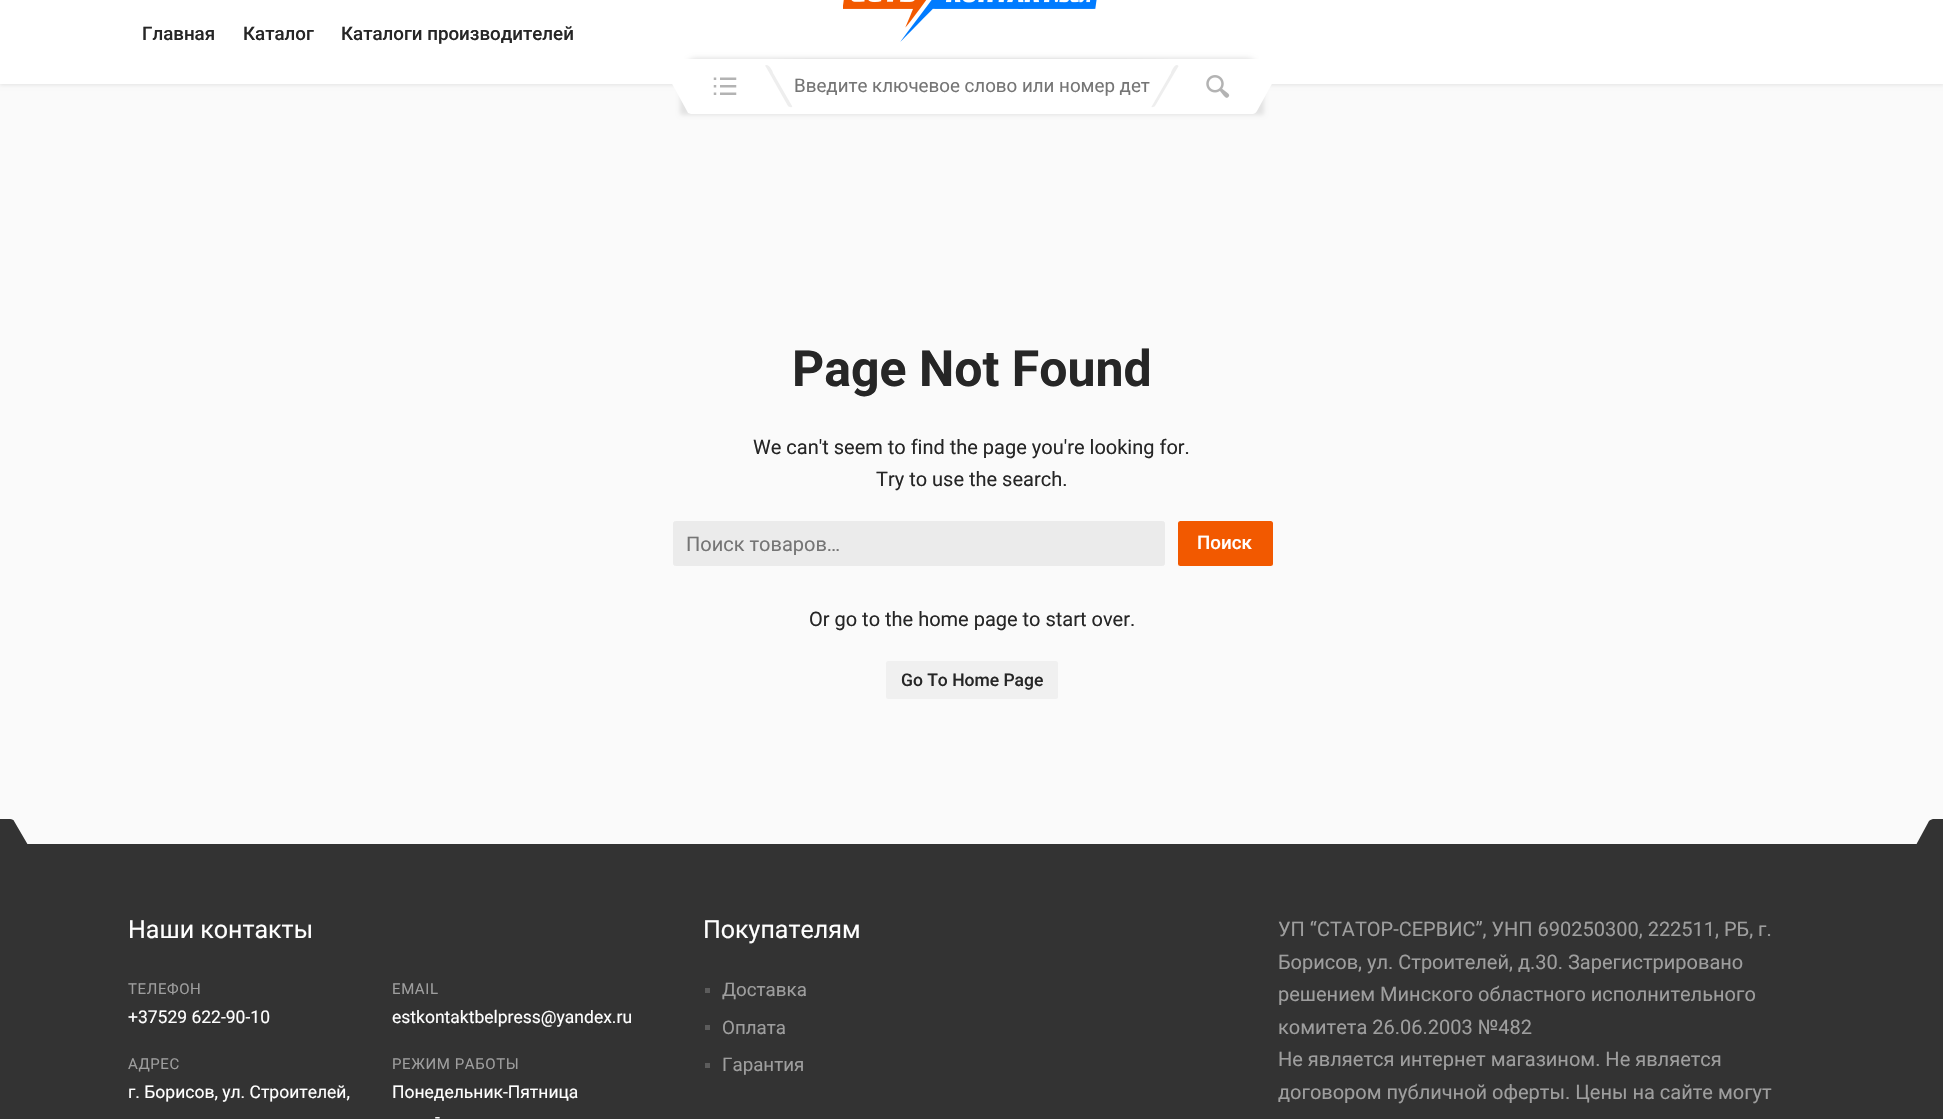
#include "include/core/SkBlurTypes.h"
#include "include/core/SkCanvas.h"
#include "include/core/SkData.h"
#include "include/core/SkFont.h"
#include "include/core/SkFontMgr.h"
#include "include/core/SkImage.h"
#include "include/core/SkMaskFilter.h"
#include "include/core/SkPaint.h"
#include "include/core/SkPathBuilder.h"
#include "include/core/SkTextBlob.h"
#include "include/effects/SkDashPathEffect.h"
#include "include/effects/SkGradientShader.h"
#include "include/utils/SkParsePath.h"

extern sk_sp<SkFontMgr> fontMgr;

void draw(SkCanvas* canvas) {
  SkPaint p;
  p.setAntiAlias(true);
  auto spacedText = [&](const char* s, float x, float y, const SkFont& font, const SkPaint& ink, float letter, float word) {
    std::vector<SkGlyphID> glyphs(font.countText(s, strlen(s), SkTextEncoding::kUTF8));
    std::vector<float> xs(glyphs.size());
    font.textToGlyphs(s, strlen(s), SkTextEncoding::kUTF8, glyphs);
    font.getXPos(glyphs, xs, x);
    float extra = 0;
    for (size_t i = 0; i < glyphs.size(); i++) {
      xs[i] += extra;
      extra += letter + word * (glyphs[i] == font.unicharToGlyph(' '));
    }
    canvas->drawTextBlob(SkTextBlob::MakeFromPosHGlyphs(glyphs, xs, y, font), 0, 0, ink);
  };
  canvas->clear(SkColorSetRGB(250, 250, 250));
  p.setColor(SkColorSetARGB(23, 0, 0, 0));
  p.setMaskFilter(SkMaskFilter::MakeBlur(kNormal_SkBlurStyle, 2));
  canvas->drawRect(SkRect::MakeLTRB(0, -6, 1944, 85), p);
  p.setMaskFilter(nullptr);
  p.setColor(SK_ColorWHITE);
  canvas->drawRect(SkRect::MakeLTRB(0, 0, 1943, 84), p);
  canvas->drawImageRect(SkImages::DeferredFromEncodedData(SkData::MakeFromFileName("images/1.png")), SkRect::MakeLTRB(843, 0, 1097, 42), SkSamplingOptions());
  canvas->save();
  canvas->clipRect(SkRect::MakeLTRB(684, 46, 1259, 59));
  p.setColor(SkColorSetRGB(250, 250, 250));
  canvas->drawPath(SkPathBuilder().moveTo(834, 58).cubicTo(751, 58, 684, 63, 684, 70).lineTo(684, 71).cubicTo(689, 64, 754, 59, 834, 59).lineTo(1109, 59).cubicTo(1192, 59, 1259, 64, 1259, 71).lineTo(1259, 121).lineTo(1259, 70).cubicTo(1256, 59, 1130, 58, 1109, 58).close().detach(), p);
  canvas->restore();
  canvas->save();
  canvas->clipRect(SkRect::MakeLTRB(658, 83, 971, 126));
  p.setColor(SkColorSetARGB(23, 0, 0, 0));
  p.setMaskFilter(SkMaskFilter::MakeBlur(kNormal_SkBlurStyle, 2));
  canvas->drawRoundRect(SkRect::MakeLTRB(680, 84, 994, 115), 2.5f, 2.5f, p);
  p.setMaskFilter(nullptr);
  canvas->restore();
  canvas->save();
  canvas->clipRect(SkRect::MakeLTRB(658, 83, 971, 126));
  p.setColor(SK_ColorWHITE);
  canvas->drawPath(SkPathBuilder().moveTo(671, 82).lineTo(984, 82).lineTo(1002, 114).lineTo(691, 114).lineTo(688, 113).lineTo(687, 111).close().detach(), p);
  canvas->restore();
  canvas->save();
  canvas->clipRect(SkRect::MakeLTRB(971, 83, 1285, 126));
  p.setColor(SkColorSetARGB(23, 0, 0, 0));
  p.setMaskFilter(SkMaskFilter::MakeBlur(kNormal_SkBlurStyle, 2));
  canvas->drawRoundRect(SkRect::MakeLTRB(950, 84, 1264, 115), 2.5f, 2.5f, p);
  p.setMaskFilter(nullptr);
  canvas->restore();
  canvas->save();
  canvas->clipRect(SkRect::MakeLTRB(971, 83, 1285, 126));
  p.setColor(SK_ColorWHITE);
  canvas->drawPath(SkPathBuilder().moveTo(959, 82).lineTo(1273, 82).lineTo(1257, 111).cubicTo(1256, 113, 1254, 114, 1253, 114).lineTo(941, 114).close().detach(), p);
  canvas->restore();
  canvas->save();
  canvas->clipRect(SkRect::MakeLTRB(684, 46, 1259, 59));
  p.setColor(SkColorSetARGB(31, 0, 0, 0));
  p.setMaskFilter(SkMaskFilter::MakeBlur(kNormal_SkBlurStyle, 2.5f));
  canvas->drawRoundRect(SkRect::MakeLTRB(684, 58, 1259, 133), 13, 13, p);
  p.setMaskFilter(nullptr);
  canvas->restore();
  canvas->drawImageRect(SkImages::DeferredFromEncodedData(SkData::MakeFromFileName("images/2.png")), SkRect::MakeLTRB(713, 77, 737, 95), SkSamplingOptions());
  p.setColor(SkColorSetRGB(238, 238, 238));
  canvas->drawPath(SkPathBuilder().moveTo(766, 65).cubicTo(770, 65, 773, 72, 773, 73).lineTo(792, 106).cubicTo(793, 108, 789, 107, 788, 106).lineTo(766, 67).cubicTo(765, 66, 765, 65, 766, 65).close().detach(), p);
  canvas->drawPath(SkPathBuilder().moveTo(1177, 65).cubicTo(1178, 65, 1179, 66, 1178, 67).lineTo(1155, 106).cubicTo(1154, 107, 1150, 108, 1152, 106).lineTo(1171, 73).cubicTo(1171, 72, 1174, 65, 1177, 65).close().detach(), p);
  canvas->drawImageRect(SkImages::DeferredFromEncodedData(SkData::MakeFromFileName("images/3.png")), SkRect::MakeLTRB(1206, 75, 1230, 98), SkSamplingOptions());
  p.setColor(SkColorSetRGB(235, 235, 235));
  canvas->drawRoundRect(SkRect::MakeLTRB(673.5f, 521.5f, 1164.5f, 565.5f), 2, 2, p);
  p.setStyle(SkPaint::kStroke_Style);
  p.setStrokeWidth(1);
  canvas->drawRoundRect(SkRect::MakeLTRB(673.5f, 521.5f, 1164.5f, 565.5f), 2, 2, p);
  p.setStyle(SkPaint::kFill_Style);
  p.setColor(SkColorSetRGB(242, 89, 0));
  canvas->drawRoundRect(SkRect::MakeLTRB(1178, 521, 1273, 566), 2.5f, 2.5f, p);
  p.setColor(SkColorSetRGB(240, 240, 240));
  canvas->drawRoundRect(SkRect::MakeLTRB(886, 661, 1058, 699), 2.5f, 2.5f, p);
  p.setColor(SkColorSetRGB(51, 51, 51));
  canvas->drawRect(SkRect::MakeLTRB(0, 844, 1943, 1119), p);
  canvas->drawPath(SkPathBuilder().moveTo(-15, 819).lineTo(10, 819).cubicTo(12, 819, 14, 820, 14, 821).lineTo(28, 845).lineTo(0, 845).close().detach(), p);
  canvas->drawPath(SkPathBuilder().moveTo(1933, 819).lineTo(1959, 819).lineTo(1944, 845).lineTo(1916, 845).lineTo(1929, 821).cubicTo(1930, 820, 1932, 819, 1933, 819).close().detach(), p);
  p.setColor(SkColorSetRGB(92, 92, 92));
  canvas->drawRect(SkRect::MakeLTRB(705, 988, 710, 993), p);
  canvas->drawRect(SkRect::MakeLTRB(705, 1025, 710, 1030), p);
  canvas->drawRect(SkRect::MakeLTRB(705, 1063, 710, 1068), p);
  SkFont font1(fontMgr->matchFamilyStyle("Roboto", SkFontStyle(500, SkFontStyle::kNormal_Width, SkFontStyle::kUpright_Slant)), 18.75f);
  font1.setSubpixel(true);
  p.setColor(SkColorSetRGB(38, 38, 38));
  canvas->drawString("Главная", 142, 40, font1, p);
  canvas->drawString("Каталог", 243, 40, font1, p);
  canvas->drawString("Каталоги производителей", 341, 40, font1, p);
  SkFont font2(fontMgr->matchFamilyStyle("Roboto", SkFontStyle::Normal()), 18.75f);
  font2.setSubpixel(true);
  p.setColor(SkColorSetRGB(117, 117, 117));
  canvas->drawString("Введите ключевое слово или номер дет", 794, 92, font2, p);
  SkFont font3(fontMgr->matchFamilyStyle("Roboto", SkFontStyle::Bold()), 50);
  font3.setSubpixel(true);
  p.setColor(SkColorSetRGB(38, 38, 38));
  canvas->drawString("Page Not Found", 792, 386, font3, p);
  SkFont font4(fontMgr->matchFamilyStyle("Roboto", SkFontStyle::Normal()), 20);
  font4.setSubpixel(true);
  canvas->drawString("We can't seem to find the page you're looking for.", 753, 454, font4, p);
  canvas->drawString("Try to use the search.", 876, 486, font4, p);
  p.setColor(SkColorSetRGB(117, 117, 117));
  canvas->drawString("Поиск товаров…", 686, 551, font4, p);
  p.setColor(SK_ColorWHITE);
  canvas->drawString("Поиск", 1197, 549, font1, p);
  p.setColor(SkColorSetRGB(38, 38, 38));
  canvas->drawString("Or go to the home page to start over.", 809, 626, font4, p);
  SkFont font5(fontMgr->matchFamilyStyle("Roboto", SkFontStyle(500, SkFontStyle::kNormal_Width, SkFontStyle::kUpright_Slant)), 17.5f);
  font5.setSubpixel(true);
  canvas->drawString("Go To Home Page", 901, 686, font5, p);
  SkFont font6(fontMgr->matchFamilyStyle("Roboto", SkFontStyle::Normal()), 25);
  font6.setSubpixel(true);
  p.setColor(SK_ColorWHITE);
  canvas->drawString("Наши контакты", 128, 938, font6, p);
  SkFont font7(fontMgr->matchFamilyStyle("Roboto", SkFontStyle::Normal()), 15);
  font7.setSubpixel(true);
  p.setColor(SkColorSetRGB(158, 158, 158));
  spacedText("ТЕЛЕФОН", 128, 994, font7, p, 0.6f, 0);
  SkFont font8(fontMgr->matchFamilyStyle("Roboto", SkFontStyle::Normal()), 17.5f);
  font8.setSubpixel(true);
  p.setColor(SK_ColorWHITE);
  canvas->drawString("+37529 622-90-10", 128, 1023, font8, p);
  p.setColor(SkColorSetRGB(158, 158, 158));
  spacedText("EMAIL", 392, 994, font7, p, 0.6f, 0);
  p.setColor(SK_ColorWHITE);
  canvas->drawString("estkontaktbelpress@yandex.ru", 392, 1023, font8, p);
  p.setColor(SkColorSetRGB(158, 158, 158));
  spacedText("АДРЕС", 128, 1069, font7, p, 0.6f, 0);
  p.setColor(SK_ColorWHITE);
  canvas->drawString("г. Борисов, ул. Строителей,", 128, 1098, font8, p);
  p.setColor(SkColorSetRGB(158, 158, 158));
  spacedText("РЕЖИМ РАБОТЫ", 392, 1069, font7, p, 0.6f, 0);
  p.setColor(SK_ColorWHITE);
  canvas->drawString("Понедельник-Пятница", 392, 1098, font8, p);
  canvas->drawString("-", 435, 1123, font8, p);
  canvas->drawString("Покупателям", 703, 938, font6, p);
  p.setColor(SkColorSetRGB(158, 158, 158));
  canvas->drawString("Доставка", 722, 996, font2, p);
  canvas->drawString("Оплата", 722, 1034, font2, p);
  canvas->drawString("Гарантия", 722, 1071, font2, p);
  canvas->drawString("УП “СТАТОР-СЕРВИС”, УНП 690250300, 222511, РБ, г.", 1278, 936, font4, p);
  canvas->drawString("Борисов, ул. Строителей, д.30. Зарегистрировано", 1278, 969, font4, p);
  canvas->drawString("решением Минского областного исполнительного", 1278, 1001, font4, p);
  canvas->drawString("комитета 26.06.2003 №482", 1278, 1034, font4, p);
  canvas->drawString("Не является интернет магазином. Не является", 1278, 1066, font4, p);
  canvas->drawString("договором публичной оферты. Цены на сайте могут", 1278, 1099, font4, p);
}
